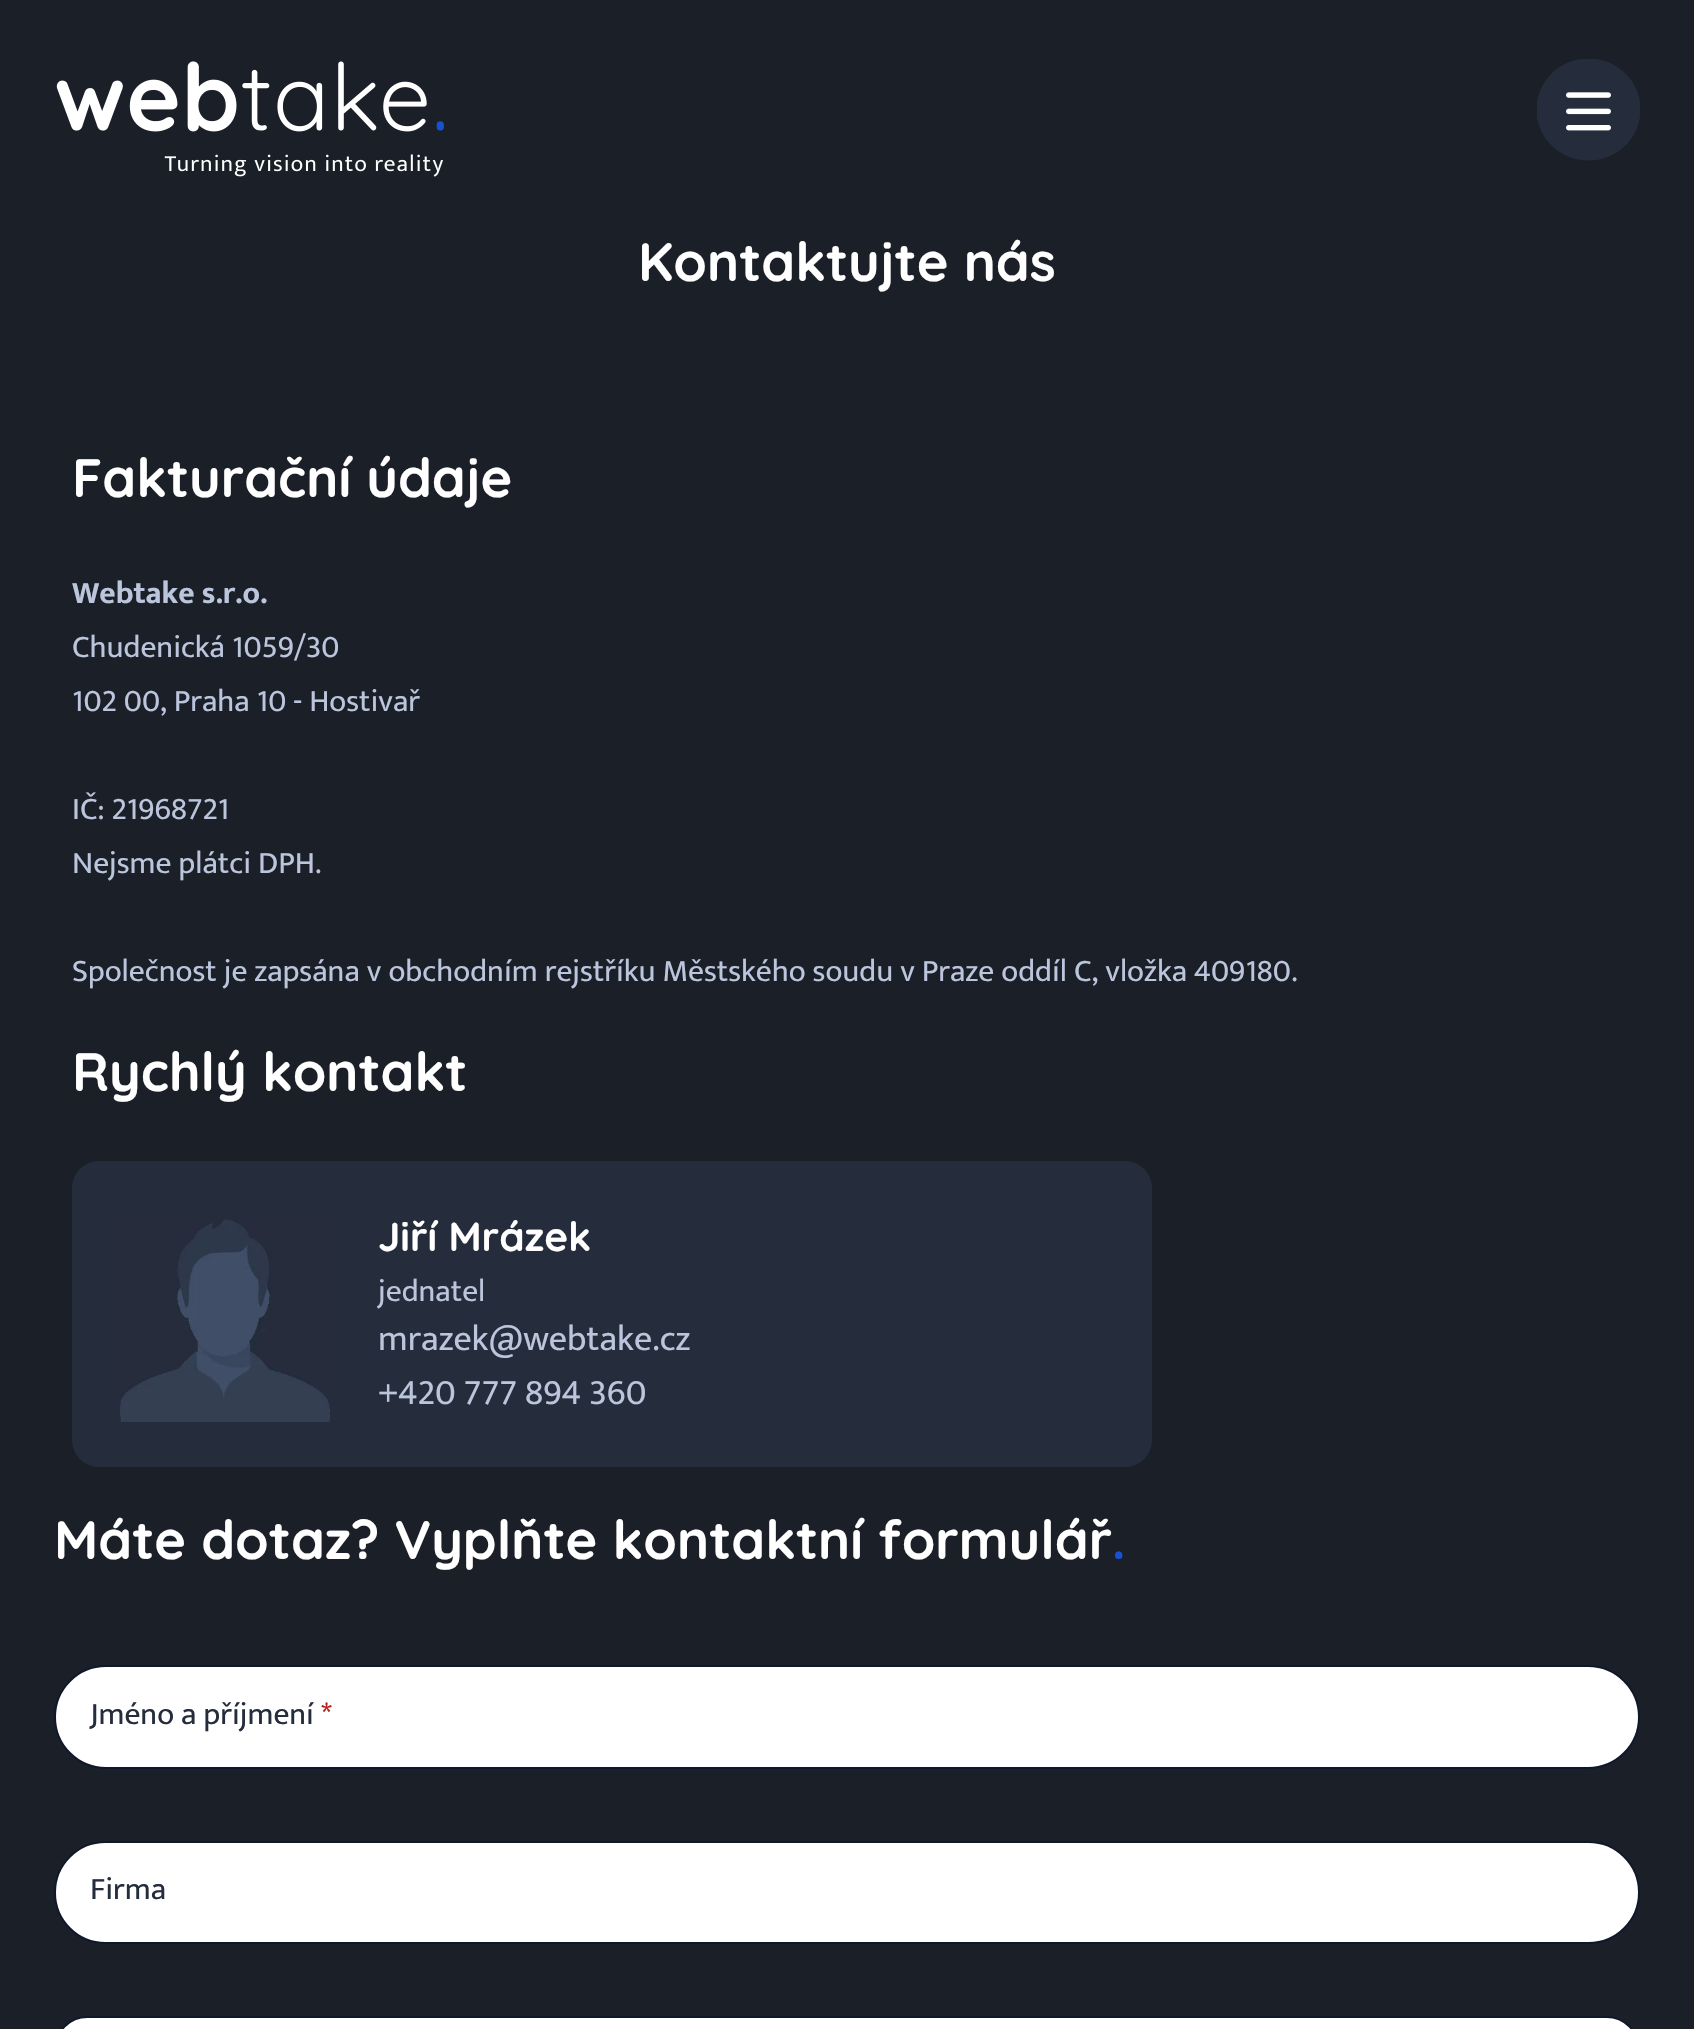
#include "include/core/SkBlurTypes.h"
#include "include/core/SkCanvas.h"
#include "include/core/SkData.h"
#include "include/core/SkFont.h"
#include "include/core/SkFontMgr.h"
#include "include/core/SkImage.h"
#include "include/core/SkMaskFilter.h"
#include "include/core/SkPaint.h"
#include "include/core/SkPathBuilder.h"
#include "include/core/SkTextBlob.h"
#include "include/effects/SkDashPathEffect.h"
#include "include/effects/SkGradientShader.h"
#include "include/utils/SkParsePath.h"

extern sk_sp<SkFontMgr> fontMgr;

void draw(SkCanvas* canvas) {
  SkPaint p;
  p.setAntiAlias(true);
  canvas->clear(SkColorSetRGB(26, 31, 40));
  canvas->drawImageRect(SkImages::DeferredFromEncodedData(SkData::MakeFromFileName("images/1.png")), SkRect::MakeLTRB(56, 61, 444, 177), SkSamplingOptions());
  canvas->drawImageRect(SkImages::DeferredFromEncodedData(SkData::MakeFromFileName("images/2.png")), SkRect::MakeLTRB(1537, 59, 1640, 161), SkSamplingOptions());
  p.setColor(SkColorSetRGB(37, 45, 60));
  canvas->drawRoundRect(SkRect::MakeLTRB(72, 1161, 1152, 1467), 27, 27, p);
  canvas->drawImageRect(SkImages::DeferredFromEncodedData(SkData::MakeFromFileName("images/3.png")), SkRect::MakeLTRB(117, 1219, 330, 1422), SkSamplingOptions());
  p.setColor(SK_ColorWHITE);
  canvas->drawRoundRect(SkRect::MakeLTRB(55, 1666, 1639, 1768), 51, 51, p);
  p.setStyle(SkPaint::kStroke_Style);
  p.setStrokeWidth(2);
  p.setColor(SkColorSetRGB(15, 23, 42));
  canvas->drawRoundRect(SkRect::MakeLTRB(55, 1666, 1639, 1768), 51, 51, p);
  p.setStyle(SkPaint::kFill_Style);
  p.setColor(SK_ColorWHITE);
  canvas->drawRoundRect(SkRect::MakeLTRB(55, 1842, 1639, 1943), 50.5f, 50.5f, p);
  p.setStyle(SkPaint::kStroke_Style);
  p.setColor(SkColorSetRGB(15, 23, 42));
  canvas->drawRoundRect(SkRect::MakeLTRB(55, 1842, 1639, 1943), 50.5f, 50.5f, p);
  p.setStyle(SkPaint::kFill_Style);
  p.setColor(SK_ColorWHITE);
  canvas->drawRoundRect(SkRect::MakeLTRB(55, 2017, 1639, 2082), 51, 51, p);
  p.setStyle(SkPaint::kStroke_Style);
  p.setColor(SkColorSetRGB(15, 23, 42));
  canvas->drawRoundRect(SkRect::MakeLTRB(55, 2017, 1639, 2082), 51, 51, p);
  SkFont font1(fontMgr->matchFamilyStyle("Quicksand", SkFontStyle::Bold()), 54);
  font1.setSubpixel(true);
  p.setStyle(SkPaint::kFill_Style);
  p.setColor(SK_ColorWHITE);
  canvas->drawString("Kontaktujte nás", 638, 281, font1, p);
  canvas->drawString("Fakturační údaje", 72, 497, font1, p);
  SkFont font2(fontMgr->matchFamilyStyle("Mukta", SkFontStyle::Bold()), 31.5f);
  font2.setSubpixel(true);
  p.setColor(SkColorSetRGB(187, 197, 220));
  canvas->drawString("Webtake s.r.o.", 72, 603, font2, p);
  SkFont font3(fontMgr->matchFamilyStyle("Mukta", SkFontStyle::Normal()), 31.5f);
  font3.setSubpixel(true);
  canvas->drawString("Chudenická 1059/30", 72, 657, font3, p);
  canvas->drawString("102 00, Praha 10 - Hostivař", 72, 711, font3, p);
  canvas->drawString("IČ: 21968721", 72, 819, font3, p);
  canvas->drawString("Nejsme plátci DPH.", 72, 873, font3, p);
  canvas->drawString("Společnost je zapsána v obchodním rejstříku Městského soudu v Praze oddíl C, vložka 409180.", 72, 981, font3, p);
  p.setColor(SK_ColorWHITE);
  canvas->drawString("Rychlý kontakt", 72, 1091, font1, p);
  SkFont font4(fontMgr->matchFamilyStyle("Quicksand", SkFontStyle::Bold()), 40.5f);
  font4.setSubpixel(true);
  canvas->drawString("Jiří Mrázek", 378, 1251, font4, p);
  p.setColor(SkColorSetRGB(187, 197, 220));
  canvas->drawString("jednatel", 378, 1301, font3, p);
  SkFont font5(fontMgr->matchFamilyStyle("Mukta", SkFontStyle::Normal()), 36);
  font5.setSubpixel(true);
  canvas->drawString("mrazek@webtake.cz", 378, 1350, font5, p);
  canvas->drawString("+420 777 894 360", 378, 1404, font5, p);
  p.setColor(SK_ColorWHITE);
  canvas->drawString("Máte dotaz? Vyplňte kontaktní formulář", 54, 1559, font1, p);
  p.setColor(SkColorSetRGB(24, 81, 207));
  canvas->drawString(".", 1112, 1559, font1, p);
  p.setColor(SkColorSetRGB(37, 45, 60));
  canvas->drawString("Jméno a příjmení", 90, 1724, font3, p);
  p.setColor(SkColorSetRGB(185, 28, 28));
  canvas->drawString("*", 321, 1724, font3, p);
  p.setColor(SkColorSetRGB(37, 45, 60));
  canvas->drawString("Firma", 90, 1899, font3, p);
}
